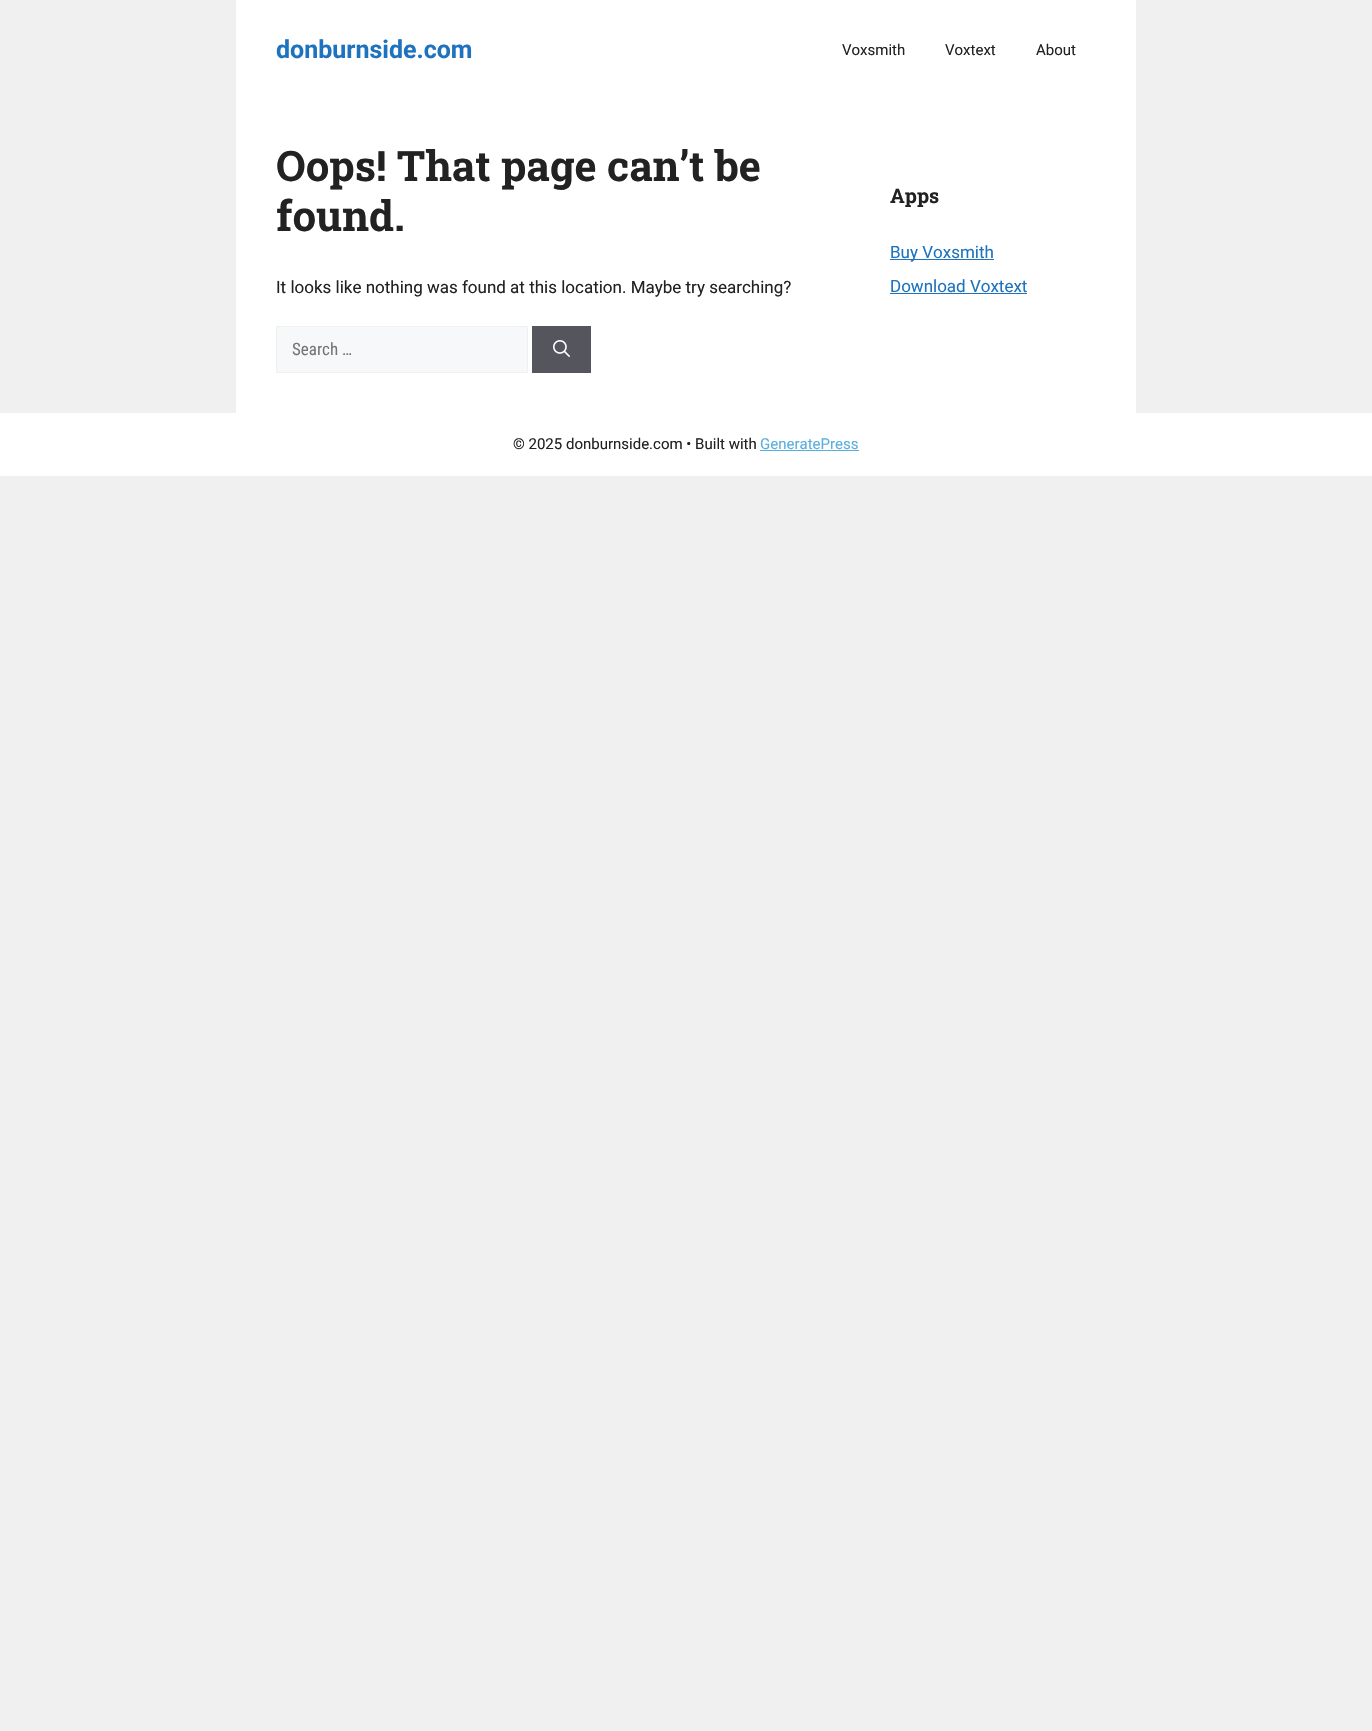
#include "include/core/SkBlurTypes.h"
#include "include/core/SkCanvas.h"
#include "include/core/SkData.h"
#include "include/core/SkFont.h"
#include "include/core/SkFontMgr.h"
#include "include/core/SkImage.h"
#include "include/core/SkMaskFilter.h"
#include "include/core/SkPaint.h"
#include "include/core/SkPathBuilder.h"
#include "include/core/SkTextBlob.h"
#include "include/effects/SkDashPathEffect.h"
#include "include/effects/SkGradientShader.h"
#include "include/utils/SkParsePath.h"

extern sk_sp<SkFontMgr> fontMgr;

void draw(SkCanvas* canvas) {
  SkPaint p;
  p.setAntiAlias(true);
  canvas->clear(SkColorSetRGB(240, 240, 240));
  p.setColor(SK_ColorWHITE);
  canvas->drawRect(SkRect::MakeLTRB(236, 0, 1136, 413), p);
  p.setColor(SkColorSetRGB(247, 248, 249));
  canvas->drawRect(SkRect::MakeLTRB(276.5f, 326.5f, 527.5f, 372.5f), p);
  p.setStyle(SkPaint::kStroke_Style);
  p.setStrokeWidth(1);
  p.setColor(SkColorSetRGB(240, 240, 240));
  canvas->drawRect(SkRect::MakeLTRB(276.5f, 326.5f, 527.5f, 372.5f), p);
  p.setStyle(SkPaint::kFill_Style);
  p.setColor(SkColorSetRGB(85, 85, 94));
  canvas->drawRect(SkRect::MakeLTRB(532, 326, 591, 373), p);
  canvas->drawImageRect(SkImages::DeferredFromEncodedData(SkData::MakeFromFileName("images/1.png")), SkRect::MakeLTRB(553, 340, 570, 357), SkSamplingOptions());
  p.setColor(SkColorSetRGB(30, 115, 190));
  canvas->drawRect(SkRect::MakeLTRB(890, 259, 994, 260), p);
  canvas->drawRect(SkRect::MakeLTRB(890, 293, 1027, 294), p);
  p.setColor(SK_ColorWHITE);
  canvas->drawRect(SkRect::MakeLTRB(0, 413, 1372, 476), p);
  p.setColor(SkColorSetRGB(90, 175, 221));
  canvas->drawRect(SkRect::MakeLTRB(760, 450, 859, 451), p);
  SkFont font1(fontMgr->matchFamilyStyle("Roboto", SkFontStyle::Bold()), 25);
  font1.setSubpixel(true);
  p.setColor(SkColorSetRGB(30, 115, 190));
  canvas->drawString("donburnside.com", 276, 58, font1, p);
  SkFont font2(fontMgr->matchFamilyStyle("Roboto", SkFontStyle::Normal()), 15);
  font2.setSubpixel(true);
  p.setColor(SkColorSetRGB(34, 34, 34));
  canvas->drawString("Voxsmith", 842, 55, font2, p);
  canvas->drawString("Voxtext", 945, 55, font2, p);
  canvas->drawString("About", 1036, 55, font2, p);
  SkFont font3(fontMgr->matchFamilyStyle("Roboto Slab", SkFontStyle::Bold()), 42);
  font3.setSubpixel(true);
  canvas->drawString("Oops! That page can’t be", 276, 181, font3, p);
  canvas->drawString("found.", 276, 231, font3, p);
  SkFont font4(fontMgr->matchFamilyStyle("Roboto", SkFontStyle::Normal()), 17);
  font4.setSubpixel(true);
  canvas->drawString("It looks like nothing was found at this location. Maybe try searching?", 276, 293, font4, p);
  SkFont font5(fontMgr->matchFamilyStyle("Roboto Condensed", SkFontStyle::Normal()), 17);
  font5.setSubpixel(true);
  p.setColor(SkColorSetRGB(117, 117, 117));
  canvas->drawString("Search …", 292, 355, font5, p);
  SkFont font6(fontMgr->matchFamilyStyle("Roboto Slab", SkFontStyle::Bold()), 20);
  font6.setSubpixel(true);
  p.setColor(SkColorSetRGB(34, 34, 34));
  canvas->drawString("Apps", 890, 203, font6, p);
  p.setColor(SkColorSetRGB(30, 115, 190));
  canvas->drawString("Buy Voxsmith", 890, 258, font4, p);
  canvas->drawString("Download Voxtext", 890, 292, font4, p);
  p.setColor(SkColorSetRGB(34, 34, 34));
  canvas->drawString("© 2025 donburnside.com • Built with", 513, 449, font2, p);
  p.setColor(SkColorSetRGB(90, 175, 221));
  canvas->drawString("GeneratePress", 760, 449, font2, p);
}
